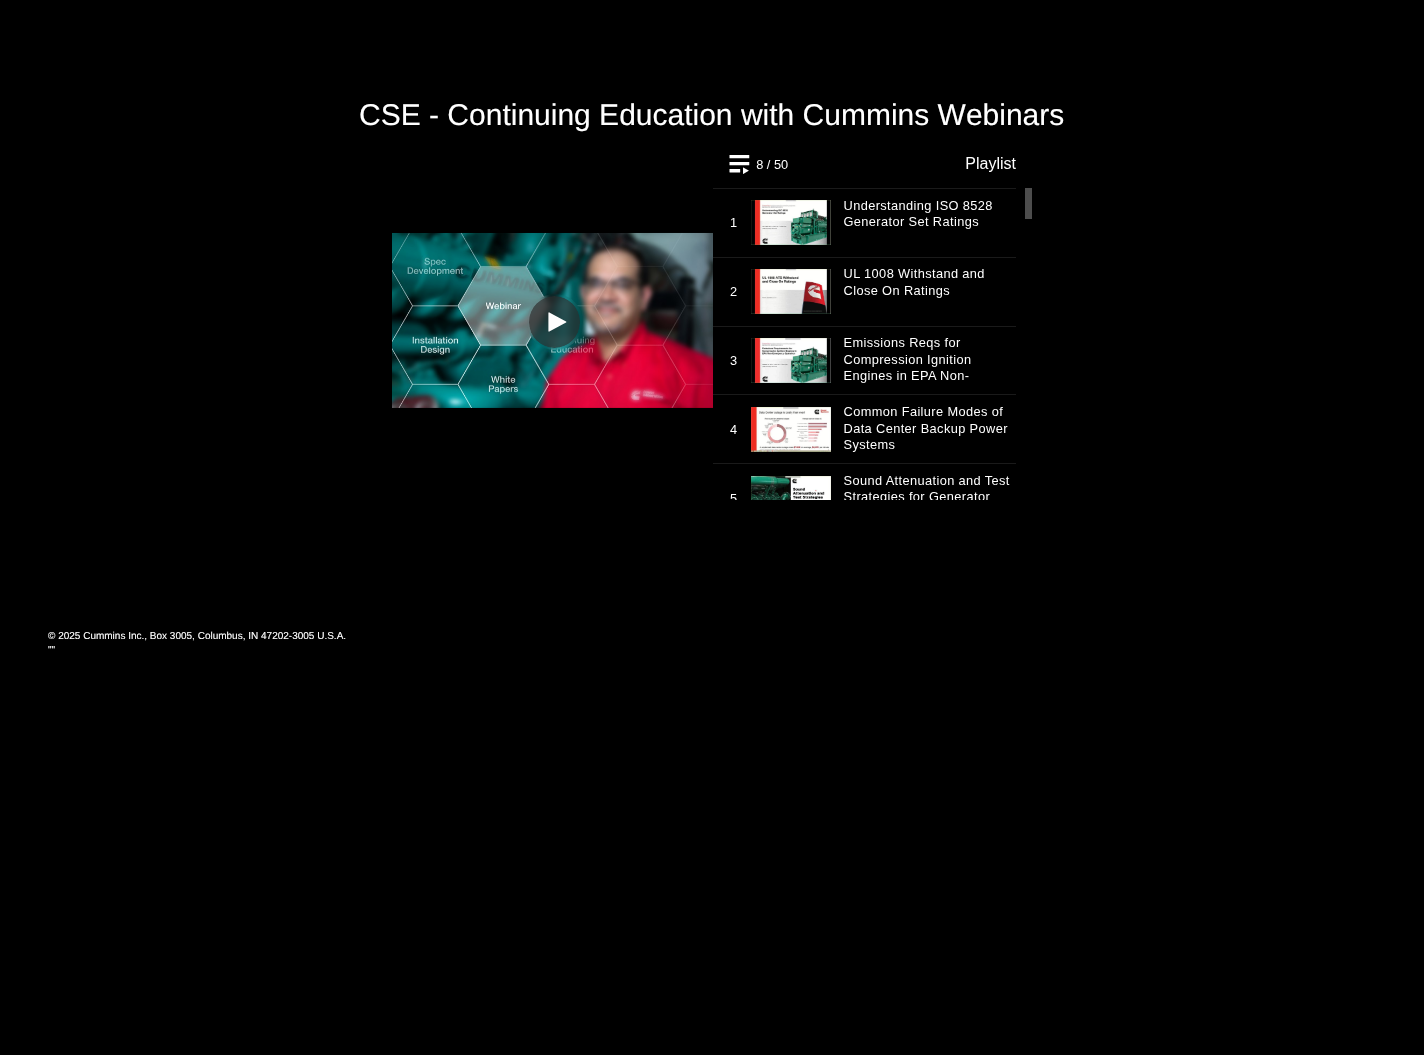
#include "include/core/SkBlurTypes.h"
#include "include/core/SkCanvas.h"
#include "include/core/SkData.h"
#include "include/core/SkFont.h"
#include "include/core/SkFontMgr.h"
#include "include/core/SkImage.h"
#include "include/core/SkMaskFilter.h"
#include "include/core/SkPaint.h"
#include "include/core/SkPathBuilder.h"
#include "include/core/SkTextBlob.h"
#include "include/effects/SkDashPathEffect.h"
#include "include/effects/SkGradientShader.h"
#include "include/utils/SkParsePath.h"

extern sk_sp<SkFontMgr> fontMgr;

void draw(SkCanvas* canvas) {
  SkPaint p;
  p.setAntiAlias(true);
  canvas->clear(SK_ColorBLACK);
  canvas->drawImageRect(SkImages::DeferredFromEncodedData(SkData::MakeFromFileName("images/1.png")), SkRect::MakeLTRB(392, 155, 1032, 500), SkSamplingOptions());
  SkFont font1(fontMgr->matchFamilyStyle("Liberation Sans", SkFontStyle::Normal()), 30);
  font1.setSubpixel(true);
  p.setColor(SK_ColorWHITE);
  canvas->drawString("CSE - Continuing Education with Cummins Webinars", 359, 125, font1, p);
  SkFont font2(fontMgr->matchFamilyStyle("Liberation Sans", SkFontStyle::Normal()), 10);
  font2.setSubpixel(true);
  canvas->drawString("© 2025 Cummins Inc., Box 3005, Columbus, IN 47202-3005 U.S.A.", 48, 639, font2, p);
  canvas->drawString("\"\"", 48, 653, font2, p);
}
